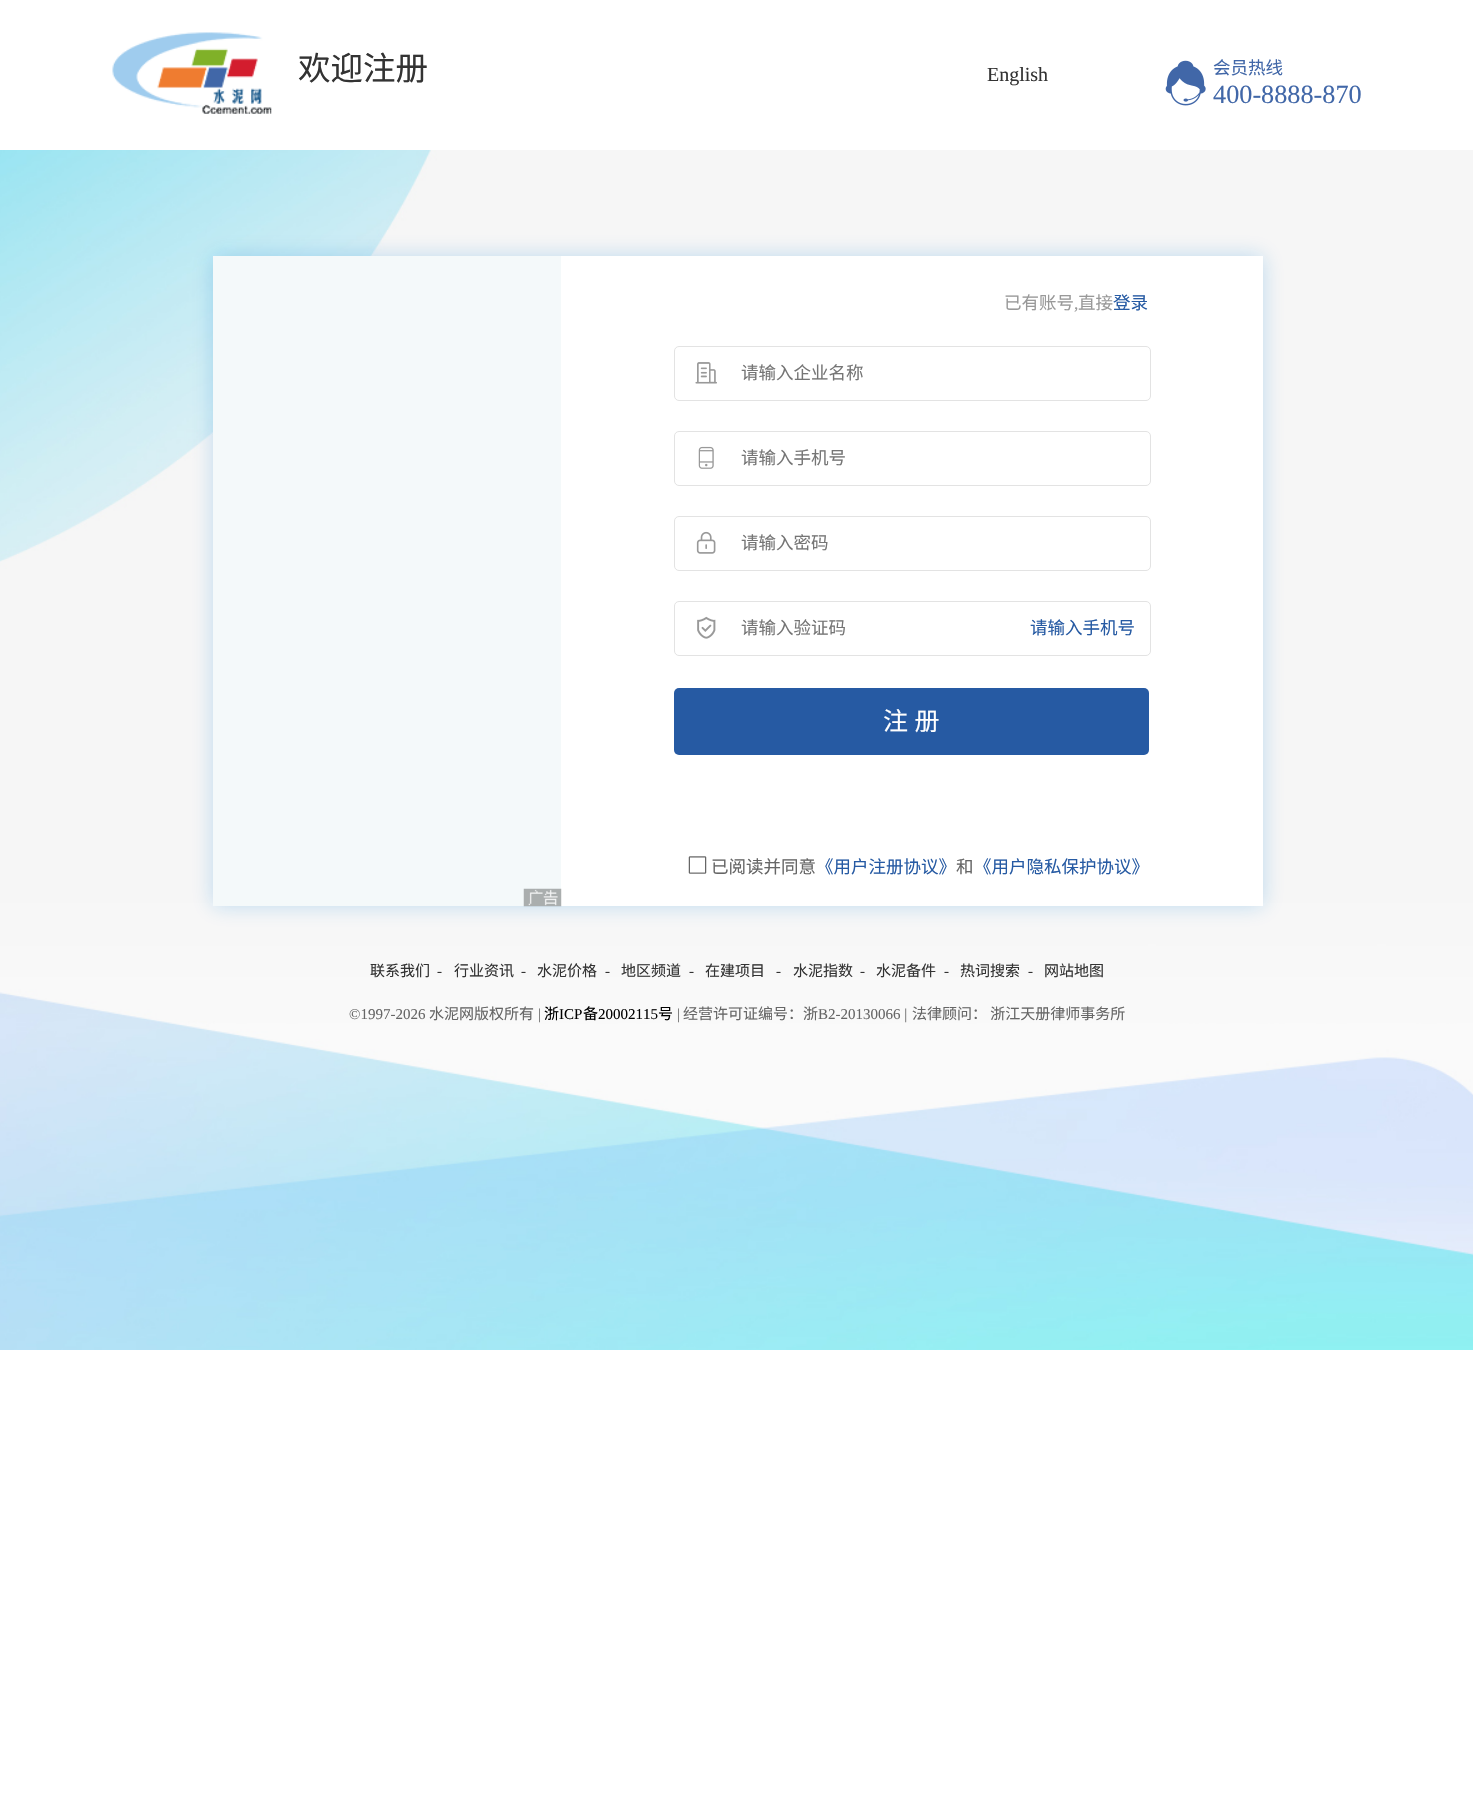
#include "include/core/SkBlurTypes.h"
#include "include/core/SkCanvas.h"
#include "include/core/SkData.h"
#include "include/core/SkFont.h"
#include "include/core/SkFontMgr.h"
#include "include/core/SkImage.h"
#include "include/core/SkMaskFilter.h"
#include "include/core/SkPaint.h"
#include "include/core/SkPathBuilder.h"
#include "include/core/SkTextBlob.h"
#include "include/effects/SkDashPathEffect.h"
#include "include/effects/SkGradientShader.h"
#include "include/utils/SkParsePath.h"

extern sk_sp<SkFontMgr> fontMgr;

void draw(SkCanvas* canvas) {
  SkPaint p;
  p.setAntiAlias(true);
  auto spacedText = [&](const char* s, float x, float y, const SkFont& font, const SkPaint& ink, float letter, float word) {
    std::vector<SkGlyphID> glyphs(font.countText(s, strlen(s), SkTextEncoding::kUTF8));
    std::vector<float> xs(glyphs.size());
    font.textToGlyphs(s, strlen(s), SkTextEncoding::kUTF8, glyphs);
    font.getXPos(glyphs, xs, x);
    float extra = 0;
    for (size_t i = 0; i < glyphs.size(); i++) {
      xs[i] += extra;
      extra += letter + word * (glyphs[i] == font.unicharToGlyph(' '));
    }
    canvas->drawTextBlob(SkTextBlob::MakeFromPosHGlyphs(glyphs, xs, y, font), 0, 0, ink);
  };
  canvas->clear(SK_ColorWHITE);
  canvas->drawImageRect(SkImages::DeferredFromEncodedData(SkData::MakeFromFileName("images/1.png")), SkRect::MakeLTRB(0, 150, 1473, 1350), SkSamplingOptions());
  canvas->drawImageRect(SkImages::DeferredFromEncodedData(SkData::MakeFromFileName("images/2.png")), SkRect::MakeLTRB(112, 32, 272, 114), SkSamplingOptions());
  canvas->drawImageRect(SkImages::DeferredFromEncodedData(SkData::MakeFromFileName("images/3.png")), SkRect::MakeLTRB(1165, 60, 1206, 106), SkSamplingOptions());
  p.setColor(SkColorSetARGB(64, 11, 127, 210));
  p.setMaskFilter(SkMaskFilter::MakeBlur(kNormal_SkBlurStyle, 10));
  canvas->drawRect(SkRect::MakeLTRB(213, 256, 1263, 906), p);
  p.setMaskFilter(nullptr);
  p.setColor(SK_ColorWHITE);
  canvas->drawRect(SkRect::MakeLTRB(561, 256, 1263, 906), p);
  p.setColor(SkColorSetRGB(244, 249, 250));
  canvas->drawRect(SkRect::MakeLTRB(213, 256, 561, 906), p);
  canvas->drawImageRect(SkImages::DeferredFromEncodedData(SkData::MakeFromFileName("images/4.png")), SkRect::MakeLTRB(523, 888, 562, 907), SkSamplingOptions());
  p.setStyle(SkPaint::kStroke_Style);
  p.setStrokeWidth(1);
  p.setColor(SkColorSetRGB(227, 227, 227));
  canvas->drawRoundRect(SkRect::MakeLTRB(674.5f, 346.5f, 1150.5f, 400.5f), 4.5f, 4.5f, p);
  canvas->drawImageRect(SkImages::DeferredFromEncodedData(SkData::MakeFromFileName("images/5.png")), SkRect::MakeLTRB(695, 362, 717, 384), SkSamplingOptions());
  canvas->drawRoundRect(SkRect::MakeLTRB(674.5f, 431.5f, 1150.5f, 485.5f), 4.5f, 4.5f, p);
  canvas->drawImageRect(SkImages::DeferredFromEncodedData(SkData::MakeFromFileName("images/6.png")), SkRect::MakeLTRB(698, 446, 714, 469), SkSamplingOptions());
  canvas->drawRoundRect(SkRect::MakeLTRB(674.5f, 516.5f, 1150.5f, 570.5f), 4.5f, 4.5f, p);
  canvas->drawImageRect(SkImages::DeferredFromEncodedData(SkData::MakeFromFileName("images/7.png")), SkRect::MakeLTRB(696, 531, 716, 554), SkSamplingOptions());
  canvas->drawRoundRect(SkRect::MakeLTRB(674.5f, 601.5f, 1150.5f, 655.5f), 4.5f, 4.5f, p);
  canvas->drawImageRect(SkImages::DeferredFromEncodedData(SkData::MakeFromFileName("images/8.png")), SkRect::MakeLTRB(697, 616, 716, 639), SkSamplingOptions());
  p.setStyle(SkPaint::kFill_Style);
  p.setColor(SkColorSetRGB(38, 90, 163));
  canvas->drawRoundRect(SkRect::MakeLTRB(674, 688, 1149, 755), 5, 5, p);
  canvas->drawImageRect(SkImages::DeferredFromEncodedData(SkData::MakeFromFileName("images/9.png")), SkRect::MakeLTRB(688, 856, 707, 874), SkSamplingOptions());
  SkFont font1(fontMgr->matchFamilyStyle("Noto Sans CJK SC", SkFontStyle::Normal()), 32.5f);
  font1.setSubpixel(true);
  p.setColor(SkColorSetRGB(51, 51, 51));
  canvas->drawString("欢迎注册", 298, 80, font1, p);
  SkFont font2(fontMgr->matchFamilyStyle("Liberation Serif", SkFontStyle::Normal()), 20);
  font2.setSubpixel(true);
  canvas->drawString("English", 987, 81, font2, p);
  SkFont font3(fontMgr->matchFamilyStyle("Noto Sans CJK SC", SkFontStyle::Normal()), 17.5f);
  font3.setSubpixel(true);
  p.setColor(SkColorSetRGB(65, 103, 168));
  canvas->drawString("会员热线", 1213, 74, font3, p);
  SkFont font4(fontMgr->matchFamilyStyle("Liberation Serif", SkFontStyle::Normal()), 26.25f);
  font4.setSubpixel(true);
  canvas->drawString("400-8888-870", 1213, 103, font4, p);
  p.setColor(SkColorSetRGB(153, 153, 153));
  canvas->drawString("已有账号", 1004, 309, font3, p);
  SkFont font5(fontMgr->matchFamilyStyle("Liberation Serif", SkFontStyle::Normal()), 17.5f);
  font5.setSubpixel(true);
  canvas->drawString(",", 1074, 309, font5, p);
  canvas->drawString("直接", 1078, 309, font3, p);
  p.setColor(SkColorSetRGB(38, 90, 163));
  canvas->drawString("登录", 1113, 309, font3, p);
  p.setColor(SkColorSetRGB(117, 117, 117));
  canvas->drawString("请输入企业名称", 741, 379, font3, p);
  canvas->drawString("请输入手机号", 741, 464, font3, p);
  canvas->drawString("请输入密码", 741, 549, font3, p);
  canvas->drawString("请输入验证码", 741, 634, font3, p);
  p.setColor(SkColorSetRGB(38, 90, 163));
  canvas->drawString("请输入手机号", 1030, 634, font3, p);
  SkFont font6(fontMgr->matchFamilyStyle("Noto Sans CJK SC", SkFontStyle::Normal()), 25);
  font6.setSubpixel(true);
  p.setColor(SK_ColorWHITE);
  spacedText("注 册", 883, 730, font6, p, 0, 1);
  p.setColor(SkColorSetRGB(102, 102, 102));
  canvas->drawString("已阅读并同意", 711, 873, font3, p);
  p.setColor(SkColorSetRGB(38, 90, 163));
  canvas->drawString("《用户注册协议》", 816, 873, font3, p);
  p.setColor(SkColorSetRGB(102, 102, 102));
  canvas->drawString("和", 956, 873, font3, p);
  p.setColor(SkColorSetRGB(38, 90, 163));
  canvas->drawString("《用户隐私保护协议》", 974, 873, font3, p);
  SkFont font7(fontMgr->matchFamilyStyle("Noto Sans CJK SC", SkFontStyle::Normal()), 15);
  font7.setSubpixel(true);
  p.setColor(SkColorSetRGB(51, 51, 51));
  canvas->drawString("联系我们", 370, 976, font7, p);
  SkFont font8(fontMgr->matchFamilyStyle("Liberation Serif", SkFontStyle::Normal()), 15);
  font8.setSubpixel(true);
  canvas->drawString("-", 437, 976, font8, p);
  canvas->drawString("行业资讯", 454, 976, font7, p);
  canvas->drawString("-", 521, 976, font8, p);
  canvas->drawString("水泥价格", 537, 976, font7, p);
  canvas->drawString("-", 605, 976, font8, p);
  canvas->drawString("地区频道", 621, 976, font7, p);
  canvas->drawString("-", 689, 976, font8, p);
  canvas->drawString("在建项目", 705, 976, font7, p);
  canvas->drawString("-", 776, 976, font8, p);
  canvas->drawString("水泥指数", 793, 976, font7, p);
  canvas->drawString("-", 860, 976, font8, p);
  canvas->drawString("水泥备件", 876, 976, font7, p);
  canvas->drawString("-", 944, 976, font8, p);
  canvas->drawString("热词搜索", 960, 976, font7, p);
  canvas->drawString("-", 1028, 976, font8, p);
  canvas->drawString("网站地图", 1044, 976, font7, p);
  p.setColor(SkColorSetRGB(102, 102, 102));
  canvas->drawString("©1997-2026", 349, 1019, font8, p);
  canvas->drawString("水泥网版权所有", 429, 1019, font7, p);
  canvas->drawString("|", 538, 1019, font8, p);
  p.setColor(SK_ColorBLACK);
  canvas->drawString("浙", 544, 1019, font7, p);
  canvas->drawString("ICP", 559, 1019, font8, p);
  canvas->drawString("备", 583, 1019, font7, p);
  canvas->drawString("20002115", 598, 1019, font8, p);
  canvas->drawString("号", 658, 1019, font7, p);
  p.setColor(SkColorSetRGB(102, 102, 102));
  canvas->drawString("|", 677, 1019, font8, p);
  canvas->drawString("经营许可证编号：浙", 683, 1019, font7, p);
  canvas->drawString("B2-20130066 |", 818, 1019, font8, p);
  canvas->drawString("法律顾问： 浙江天册律师事务所", 912, 1019, font7, p);
}
